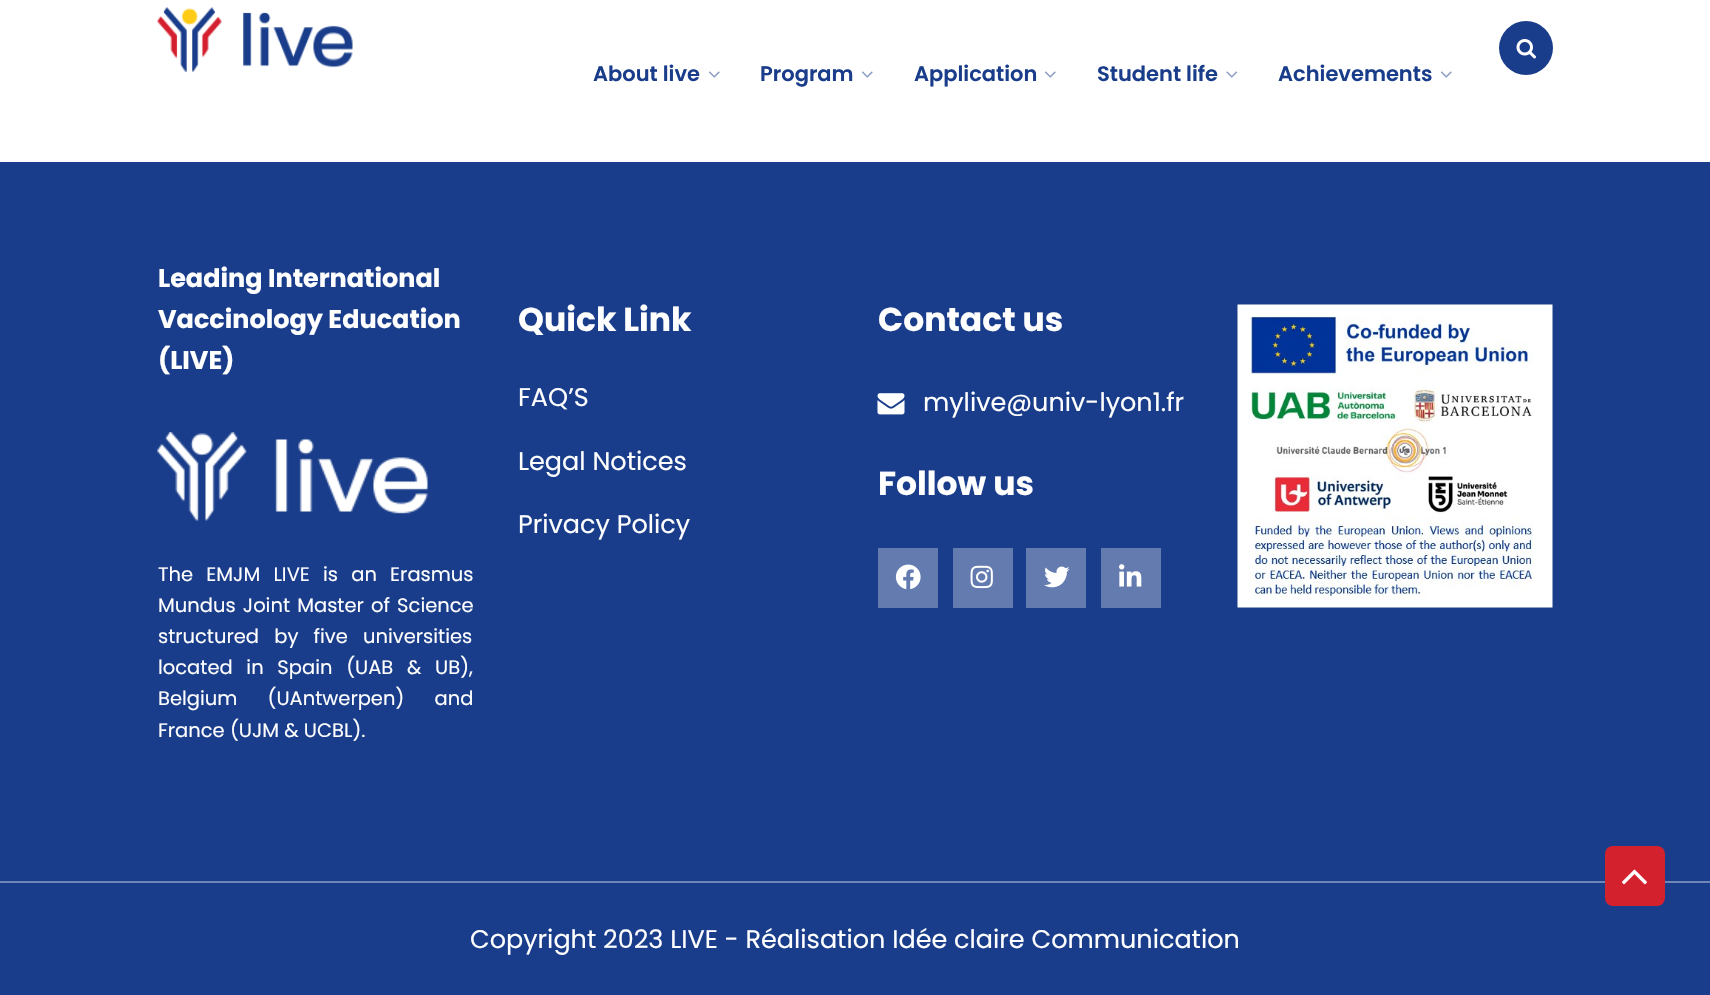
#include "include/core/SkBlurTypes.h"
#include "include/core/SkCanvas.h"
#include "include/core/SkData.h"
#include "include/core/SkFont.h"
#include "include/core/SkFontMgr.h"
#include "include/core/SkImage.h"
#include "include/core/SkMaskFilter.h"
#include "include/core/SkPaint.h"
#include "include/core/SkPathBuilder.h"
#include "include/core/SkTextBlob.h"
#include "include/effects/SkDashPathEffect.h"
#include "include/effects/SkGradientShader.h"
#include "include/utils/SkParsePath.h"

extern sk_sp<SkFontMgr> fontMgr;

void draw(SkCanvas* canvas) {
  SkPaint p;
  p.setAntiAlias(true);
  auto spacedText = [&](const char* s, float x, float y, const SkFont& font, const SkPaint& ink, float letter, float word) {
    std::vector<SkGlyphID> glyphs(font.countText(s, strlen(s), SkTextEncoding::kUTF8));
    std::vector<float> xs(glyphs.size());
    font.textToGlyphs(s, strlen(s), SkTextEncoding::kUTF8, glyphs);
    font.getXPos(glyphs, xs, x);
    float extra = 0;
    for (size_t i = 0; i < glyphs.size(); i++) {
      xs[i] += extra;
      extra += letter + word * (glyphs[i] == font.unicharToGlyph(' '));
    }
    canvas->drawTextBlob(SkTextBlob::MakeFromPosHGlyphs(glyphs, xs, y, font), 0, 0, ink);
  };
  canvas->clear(SK_ColorWHITE);
  canvas->drawImageRect(SkImages::DeferredFromEncodedData(SkData::MakeFromFileName("images/1.png")), SkRect::MakeLTRB(157, 7, 353, 72), SkSamplingOptions());
  canvas->drawImageRect(SkImages::DeferredFromEncodedData(SkData::MakeFromFileName("images/2.png")), SkRect::MakeLTRB(708, 71, 720, 78), SkSamplingOptions());
  canvas->drawImageRect(SkImages::DeferredFromEncodedData(SkData::MakeFromFileName("images/2.png")), SkRect::MakeLTRB(861, 71, 873, 78), SkSamplingOptions());
  canvas->drawImageRect(SkImages::DeferredFromEncodedData(SkData::MakeFromFileName("images/2.png")), SkRect::MakeLTRB(1044, 71, 1056, 78), SkSamplingOptions());
  canvas->drawImageRect(SkImages::DeferredFromEncodedData(SkData::MakeFromFileName("images/3.png")), SkRect::MakeLTRB(1226, 71, 1238, 78), SkSamplingOptions());
  canvas->drawImageRect(SkImages::DeferredFromEncodedData(SkData::MakeFromFileName("images/2.png")), SkRect::MakeLTRB(1440, 71, 1452, 78), SkSamplingOptions());
  p.setColor(SkColorSetRGB(25, 61, 138));
  canvas->drawCircle(1526, 48, 27, p);
  canvas->drawImageRect(SkImages::DeferredFromEncodedData(SkData::MakeFromFileName("images/4.png")), SkRect::MakeLTRB(1516, 39, 1536, 59), SkSamplingOptions());
  canvas->drawRect(SkRect::MakeLTRB(0, 162, 1710, 995), p);
  canvas->drawImageRect(SkImages::DeferredFromEncodedData(SkData::MakeFromFileName("images/5.png")), SkRect::MakeLTRB(157, 432, 428, 521), SkSamplingOptions());
  canvas->drawImageRect(SkImages::DeferredFromEncodedData(SkData::MakeFromFileName("images/6.png")), SkRect::MakeLTRB(877, 393, 905, 415), SkSamplingOptions());
  p.setColor(SkColorSetRGB(99, 123, 175));
  canvas->drawRect(SkRect::MakeLTRB(878, 548, 938, 608), p);
  canvas->drawImageRect(SkImages::DeferredFromEncodedData(SkData::MakeFromFileName("images/7.png")), SkRect::MakeLTRB(895, 564, 921, 590), SkSamplingOptions());
  canvas->drawRect(SkRect::MakeLTRB(953, 548, 1013, 608), p);
  canvas->drawImageRect(SkImages::DeferredFromEncodedData(SkData::MakeFromFileName("images/8.png")), SkRect::MakeLTRB(970, 565, 993, 589), SkSamplingOptions());
  canvas->drawRect(SkRect::MakeLTRB(1026, 548, 1086, 608), p);
  canvas->drawImageRect(SkImages::DeferredFromEncodedData(SkData::MakeFromFileName("images/9.png")), SkRect::MakeLTRB(1044, 566, 1070, 588), SkSamplingOptions());
  canvas->drawRect(SkRect::MakeLTRB(1101, 548, 1161, 608), p);
  canvas->drawImageRect(SkImages::DeferredFromEncodedData(SkData::MakeFromFileName("images/10.png")), SkRect::MakeLTRB(1119, 564, 1142, 587), SkSamplingOptions());
  canvas->drawImageRect(SkImages::DeferredFromEncodedData(SkData::MakeFromFileName("images/11.png")), SkRect::MakeLTRB(1237, 304, 1553, 608), SkSamplingOptions());
  p.setColor(SkColorSetRGB(112, 135, 182));
  canvas->drawRect(SkRect::MakeLTRB(0, 881, 1710, 883), p);
  p.setColor(SkColorSetRGB(211, 33, 45));
  canvas->drawRoundRect(SkRect::MakeLTRB(1605, 846, 1665, 906), 8, 8, p);
  canvas->drawImageRect(SkImages::DeferredFromEncodedData(SkData::MakeFromFileName("images/12.png")), SkRect::MakeLTRB(1622, 869, 1647, 885), SkSamplingOptions());
  SkFont font1(fontMgr->matchFamilyStyle("Poppins", SkFontStyle(600, SkFontStyle::kNormal_Width, SkFontStyle::kUpright_Slant)), 21);
  font1.setSubpixel(true);
  p.setColor(SkColorSetRGB(25, 61, 138));
  canvas->drawString("About live", 593, 81, font1, p);
  canvas->drawString("Program", 760, 81, font1, p);
  canvas->drawString("Application", 914, 81, font1, p);
  canvas->drawString("Student life", 1097, 81, font1, p);
  canvas->drawString("Achievements", 1278, 81, font1, p);
  SkFont font2(fontMgr->matchFamilyStyle("Poppins", SkFontStyle::Bold()), 25.5f);
  font2.setSubpixel(true);
  p.setColor(SK_ColorWHITE);
  canvas->drawString("Leading International", 158, 287, font2, p);
  canvas->drawString("Vaccinology Education", 158, 328, font2, p);
  canvas->drawString("(LIVE)", 158, 369, font2, p);
  SkFont font3(fontMgr->matchFamilyStyle("Poppins", SkFontStyle::Normal()), 19.5f);
  font3.setSubpixel(true);
  spacedText("The EMJM LIVE is an Erasmus", 158, 581, font3, p, 0, 8);
  spacedText("Mundus Joint Master of Science", 158, 612, font3, p, 0, 2);
  spacedText("structured by five universities", 158, 643, font3, p, 0, 10);
  spacedText("located in Spain (UAB & UB),", 158, 674, font3, p, 0, 8.5f);
  spacedText("Belgium (UAntwerpen) and", 158, 705, font3, p, 0, 25);
  canvas->drawString("France (UJM & UCBL).", 158, 737, font3, p);
  SkFont font4(fontMgr->matchFamilyStyle("Poppins", SkFontStyle::Bold()), 33);
  font4.setSubpixel(true);
  canvas->drawString("Quick Link", 518, 331, font4, p);
  SkFont font5(fontMgr->matchFamilyStyle("Poppins", SkFontStyle::Normal()), 25.5f);
  font5.setSubpixel(true);
  canvas->drawString("FAQ’S", 518, 406, font5, p);
  canvas->drawString("Legal Notices", 518, 470, font5, p);
  canvas->drawString("Privacy Policy", 518, 533, font5, p);
  canvas->drawString("Contact us", 878, 331, font4, p);
  canvas->drawString("mylive@univ-lyon1.fr", 923, 411, font5, p);
  canvas->drawString("Follow us", 878, 495, font4, p);
  canvas->drawString("Copyright 2023 LIVE - Réalisation Idée claire Communication", 470, 948, font5, p);
}
